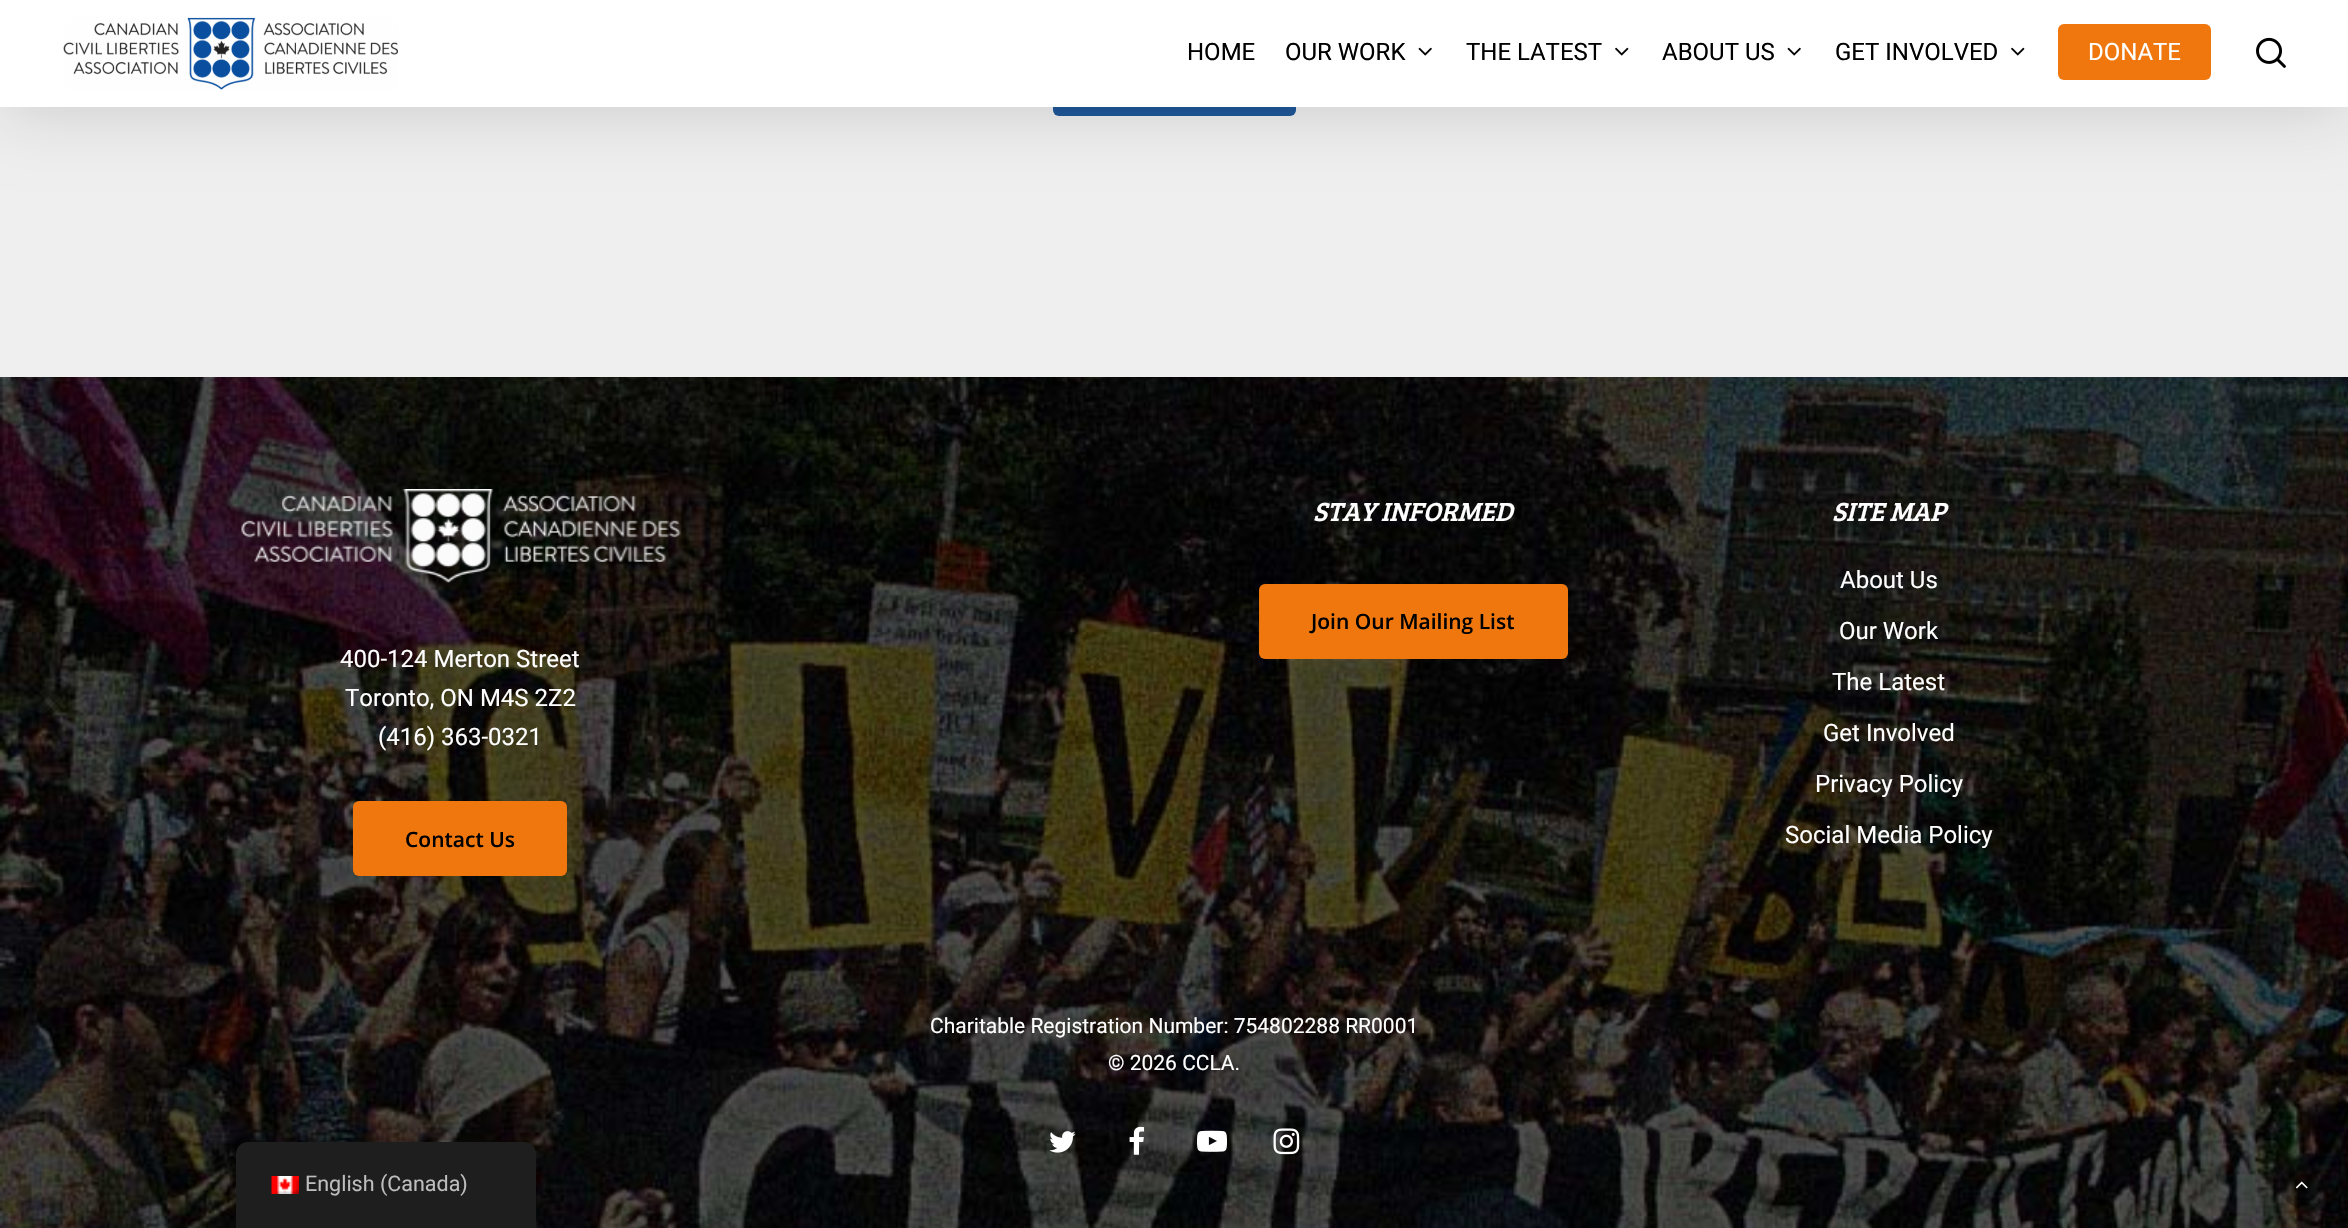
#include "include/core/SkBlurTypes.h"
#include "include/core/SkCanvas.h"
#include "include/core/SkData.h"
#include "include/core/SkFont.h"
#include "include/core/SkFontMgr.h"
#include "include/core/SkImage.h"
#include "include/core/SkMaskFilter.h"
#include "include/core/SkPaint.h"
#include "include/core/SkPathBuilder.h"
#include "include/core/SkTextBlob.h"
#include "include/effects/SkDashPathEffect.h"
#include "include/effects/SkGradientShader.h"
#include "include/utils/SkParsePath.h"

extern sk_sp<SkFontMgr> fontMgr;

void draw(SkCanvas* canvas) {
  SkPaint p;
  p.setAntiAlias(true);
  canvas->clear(SkColorSetRGB(239, 239, 239));
  p.setColor(SkColorSetRGB(30, 87, 153));
  canvas->drawRoundRect(SkRect::MakeLTRB(1053, 41, 1296, 116), 6, 6, p);
  p.setColor(SkColorSetARGB(38, 0, 0, 0));
  p.setMaskFilter(SkMaskFilter::MakeBlur(kNormal_SkBlurStyle, 34));
  canvas->drawRect(SkRect::MakeLTRB(0, -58, 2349, 111), p);
  p.setMaskFilter(nullptr);
  p.setColor(SK_ColorWHITE);
  canvas->drawRect(SkRect::MakeLTRB(0, 0, 2348, 107), p);
  canvas->drawImageRect(SkImages::DeferredFromEncodedData(SkData::MakeFromFileName("images/1.png")), SkRect::MakeLTRB(63, 17, 398, 90), SkSamplingOptions());
  canvas->drawImageRect(SkImages::DeferredFromEncodedData(SkData::MakeFromFileName("images/2.png")), SkRect::MakeLTRB(1418, 47, 1432, 56), SkSamplingOptions());
  canvas->drawImageRect(SkImages::DeferredFromEncodedData(SkData::MakeFromFileName("images/3.png")), SkRect::MakeLTRB(1615, 47, 1629, 56), SkSamplingOptions());
  canvas->drawImageRect(SkImages::DeferredFromEncodedData(SkData::MakeFromFileName("images/2.png")), SkRect::MakeLTRB(1787, 47, 1801, 56), SkSamplingOptions());
  canvas->drawImageRect(SkImages::DeferredFromEncodedData(SkData::MakeFromFileName("images/3.png")), SkRect::MakeLTRB(2011, 47, 2025, 56), SkSamplingOptions());
  p.setColor(SkColorSetRGB(239, 119, 14));
  canvas->drawRoundRect(SkRect::MakeLTRB(2058, 24, 2211, 80), 6, 6, p);
  canvas->drawImageRect(SkImages::DeferredFromEncodedData(SkData::MakeFromFileName("images/4.png")), SkRect::MakeLTRB(2256, 37, 2286, 68), SkSamplingOptions());
  canvas->drawImageRect(SkImages::DeferredFromEncodedData(SkData::MakeFromFileName("images/5.png")), SkRect::MakeLTRB(0, 377, 2348, 1228), SkSamplingOptions());
  canvas->drawImageRect(SkImages::DeferredFromEncodedData(SkData::MakeFromFileName("images/6.png")), SkRect::MakeLTRB(241, 489, 681, 583), SkSamplingOptions());
  canvas->drawRoundRect(SkRect::MakeLTRB(353, 801, 567, 876), 6, 6, p);
  canvas->drawRoundRect(SkRect::MakeLTRB(1259, 584, 1568, 659), 6, 6, p);
  canvas->drawImageRect(SkImages::DeferredFromEncodedData(SkData::MakeFromFileName("images/7.png")), SkRect::MakeLTRB(1049, 1131, 1076, 1153), SkSamplingOptions());
  canvas->drawImageRect(SkImages::DeferredFromEncodedData(SkData::MakeFromFileName("images/8.png")), SkRect::MakeLTRB(1129, 1126, 1145, 1155), SkSamplingOptions());
  canvas->drawImageRect(SkImages::DeferredFromEncodedData(SkData::MakeFromFileName("images/9.png")), SkRect::MakeLTRB(1197, 1130, 1227, 1152), SkSamplingOptions());
  canvas->drawImageRect(SkImages::DeferredFromEncodedData(SkData::MakeFromFileName("images/10.png")), SkRect::MakeLTRB(1273, 1128, 1300, 1155), SkSamplingOptions());
  p.setColor(SkColorSetARGB(64, 0, 0, 0));
  canvas->drawCircle(2302, 1186, 22, p);
  canvas->drawImageRect(SkImages::DeferredFromEncodedData(SkData::MakeFromFileName("images/11.png")), SkRect::MakeLTRB(2295, 1181, 2308, 1189), SkSamplingOptions());
  p.setMaskFilter(SkMaskFilter::MakeBlur(kNormal_SkBlurStyle, 6));
  canvas->drawRoundRect(SkRect::MakeLTRB(236, 1142, 536, 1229), 12, 12, p);
  p.setMaskFilter(nullptr);
  p.setColor(SkColorSetRGB(30, 30, 30));
  canvas->drawPath(SkPathBuilder().moveTo(248, 1142).lineTo(524, 1142).cubicTo(530.5f, 1142, 536, 1147.5f, 536, 1154).lineTo(536, 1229).lineTo(236, 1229).lineTo(236, 1154).cubicTo(236, 1147.5f, 241.5f, 1142, 248, 1142).close().detach(), p);
  canvas->drawImageRect(SkImages::DeferredFromEncodedData(SkData::MakeFromFileName("images/12.png")), SkRect::MakeLTRB(271, 1176, 299, 1194), SkSamplingOptions());
  SkFont font1(fontMgr->matchFamilyStyle("Roboto", SkFontStyle::Normal()), 24);
  font1.setSubpixel(true);
  p.setColor(SK_ColorBLACK);
  canvas->drawString("HOME", 1187, 60, font1, p);
  canvas->drawString("OUR WORK", 1285, 60, font1, p);
  canvas->drawString("THE LATEST", 1466, 60, font1, p);
  canvas->drawString("ABOUT US", 1662, 60, font1, p);
  canvas->drawString("GET INVOLVED", 1835, 60, font1, p);
  p.setColor(SK_ColorWHITE);
  canvas->drawString("DONATE", 2088, 60, font1, p);
  canvas->drawString("400-124 Merton Street", 340, 667, font1, p);
  canvas->drawString("Toronto, ON M4S 2Z2", 345, 706, font1, p);
  canvas->drawString("(416) 363-0321", 378, 745, font1, p);
  SkFont font2(fontMgr->matchFamilyStyle("Open Sans", SkFontStyle(600, SkFontStyle::kNormal_Width, SkFontStyle::kUpright_Slant)), 21);
  font2.setSubpixel(true);
  p.setColor(SK_ColorBLACK);
  canvas->drawString("Contact Us", 405, 847, font2, p);
  SkFont font3(fontMgr->matchFamilyStyle("Bree Serif", SkFontStyle::Italic()), 27);
  font3.setSubpixel(true);
  p.setColor(SK_ColorWHITE);
  canvas->drawString("STAY INFORMED", 1313, 521, font3, p);
  p.setColor(SK_ColorBLACK);
  canvas->drawString("Join Our Mailing List", 1311, 629, font2, p);
  p.setColor(SK_ColorWHITE);
  canvas->drawString("SITE MAP", 1832, 521, font3, p);
  canvas->drawString("About Us", 1840, 588, font1, p);
  canvas->drawString("Our Work", 1839, 639, font1, p);
  canvas->drawString("The Latest", 1832, 690, font1, p);
  canvas->drawString("Get Involved", 1823, 741, font1, p);
  canvas->drawString("Privacy Policy", 1815, 792, font1, p);
  canvas->drawString("Social Media Policy", 1785, 843, font1, p);
  SkFont font4(fontMgr->matchFamilyStyle("Roboto", SkFontStyle::Normal()), 21);
  font4.setSubpixel(true);
  canvas->drawString("Charitable Registration Number: 754802288 RR0001", 930, 1033, font4, p);
  canvas->drawString("© 2026 CCLA.", 1108, 1070, font4, p);
  SkFont font5(fontMgr->matchFamilyStyle("Roboto", SkFontStyle::Normal()), 21.5f);
  font5.setSubpixel(true);
  p.setColor(SkColorSetRGB(189, 189, 189));
  canvas->drawString("English (Canada)", 305, 1191, font5, p);
}
